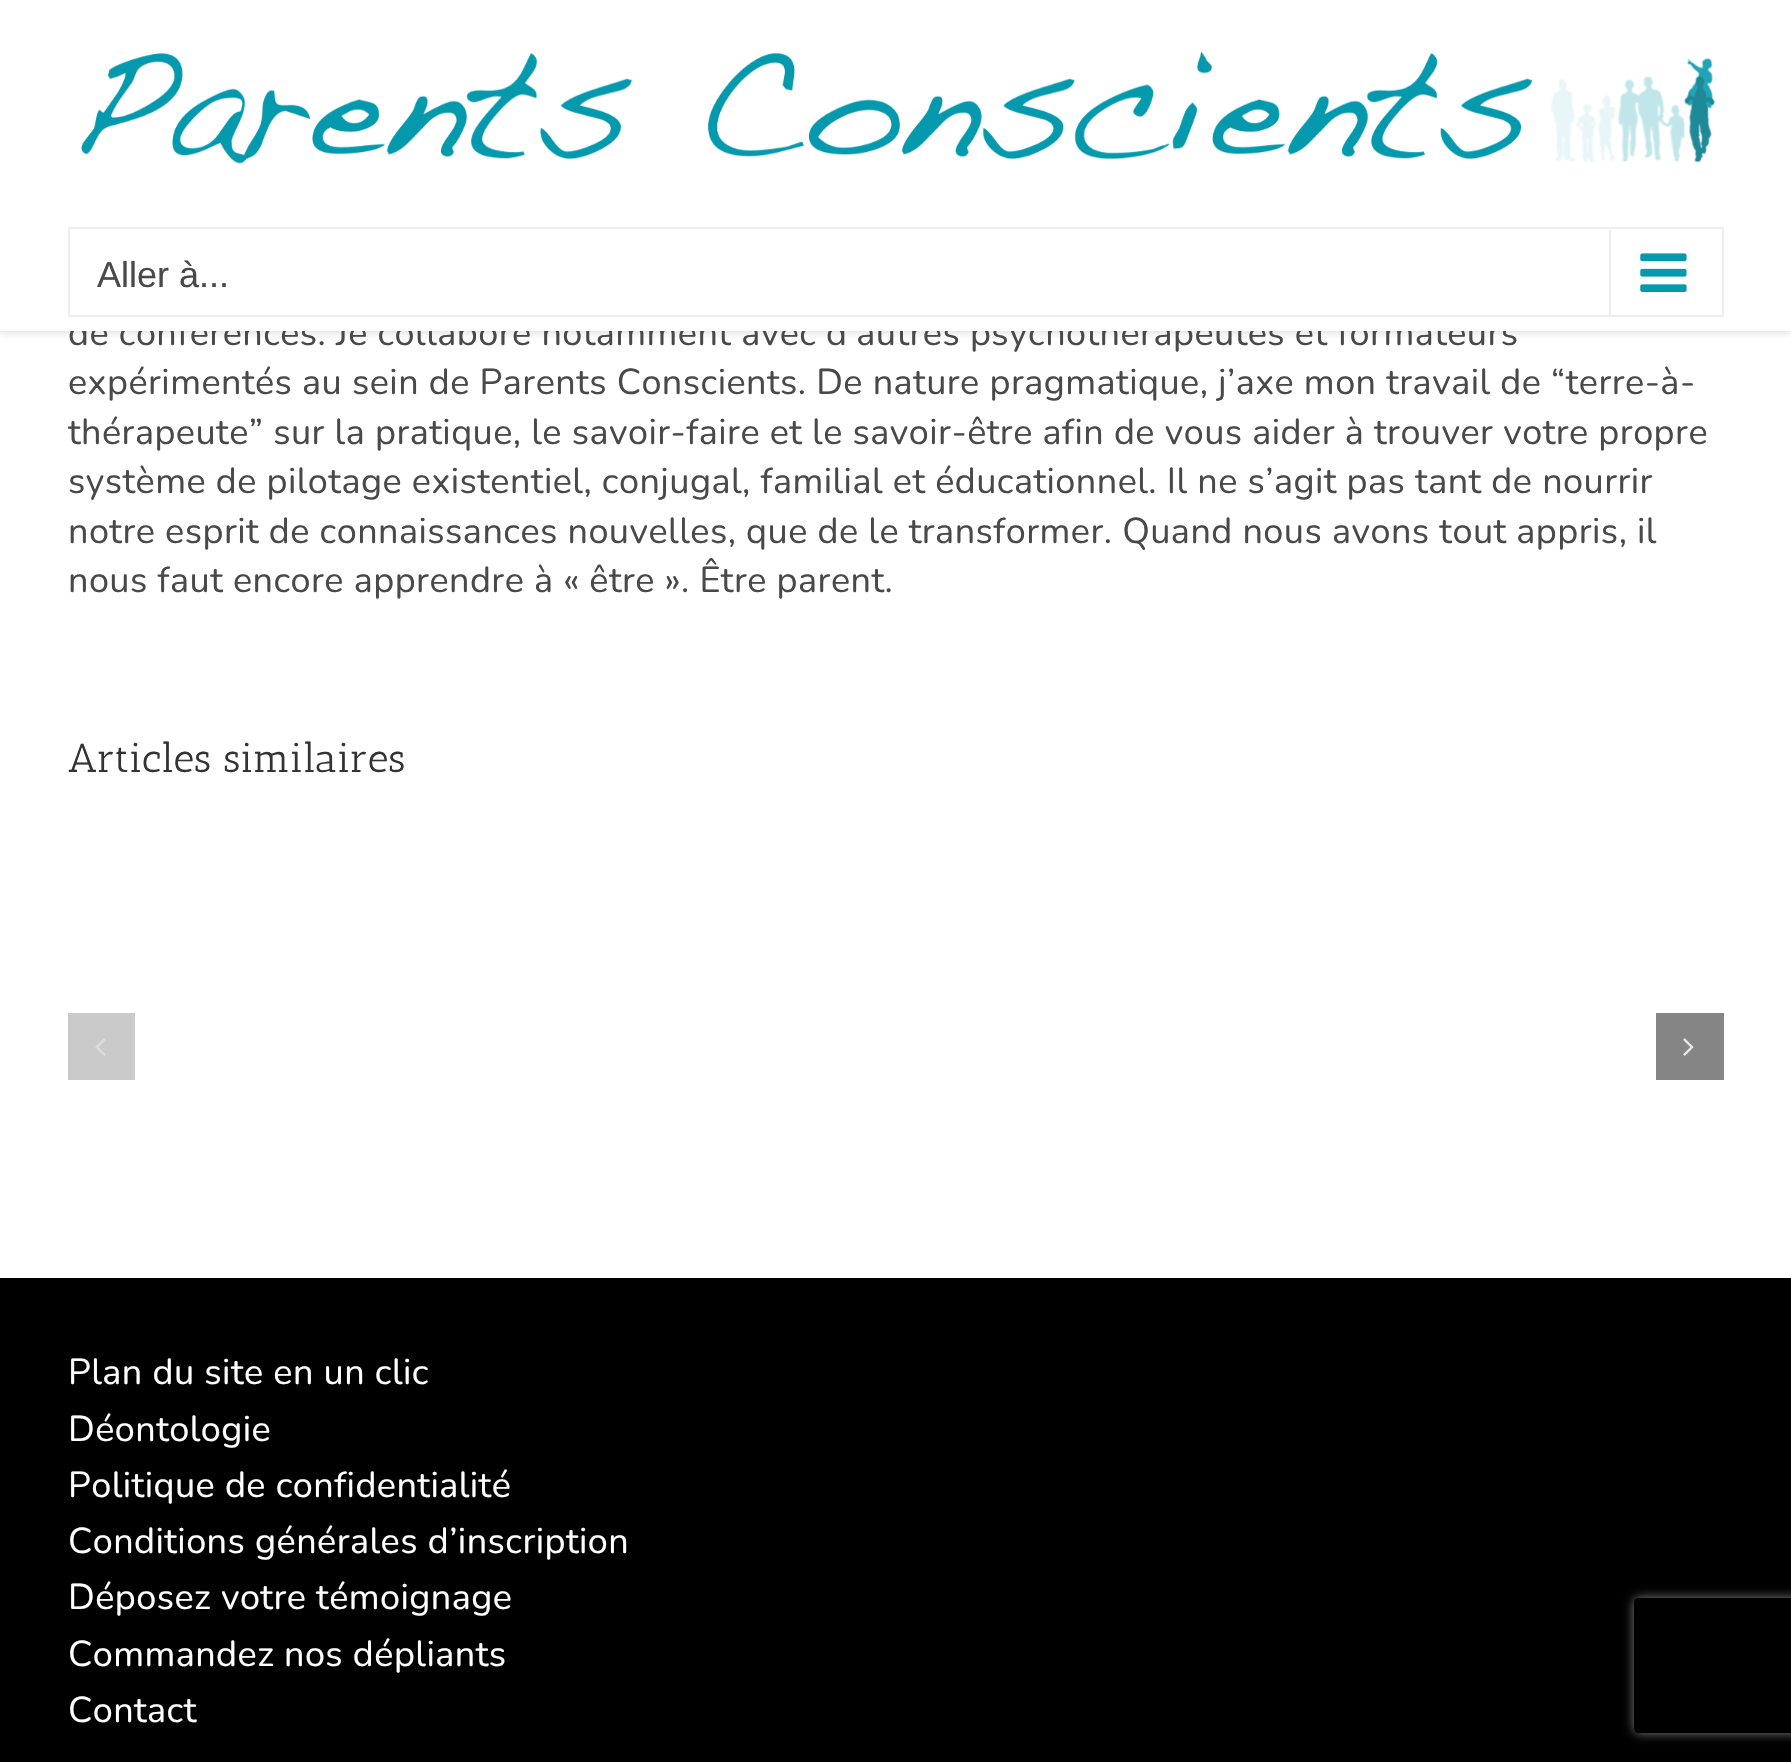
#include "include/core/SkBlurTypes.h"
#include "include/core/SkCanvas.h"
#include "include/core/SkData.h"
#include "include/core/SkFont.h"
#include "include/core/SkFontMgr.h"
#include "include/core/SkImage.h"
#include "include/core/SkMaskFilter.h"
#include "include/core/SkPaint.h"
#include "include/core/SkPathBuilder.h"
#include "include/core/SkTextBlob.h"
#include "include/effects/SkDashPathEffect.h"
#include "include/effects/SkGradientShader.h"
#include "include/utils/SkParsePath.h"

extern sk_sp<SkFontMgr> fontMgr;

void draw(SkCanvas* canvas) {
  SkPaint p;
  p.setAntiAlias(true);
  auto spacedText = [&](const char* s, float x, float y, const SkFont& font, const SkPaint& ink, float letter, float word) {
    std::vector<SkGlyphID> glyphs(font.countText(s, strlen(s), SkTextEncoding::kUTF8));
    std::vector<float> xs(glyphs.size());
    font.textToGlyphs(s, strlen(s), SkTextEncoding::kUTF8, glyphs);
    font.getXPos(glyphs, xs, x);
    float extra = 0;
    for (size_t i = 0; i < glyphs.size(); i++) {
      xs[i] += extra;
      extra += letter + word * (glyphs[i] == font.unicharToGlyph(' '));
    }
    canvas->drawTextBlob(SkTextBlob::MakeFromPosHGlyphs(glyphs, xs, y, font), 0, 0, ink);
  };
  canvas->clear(SK_ColorWHITE);
  p.setColor(SkColorSetARGB(31, 0, 0, 0));
  p.setMaskFilter(SkMaskFilter::MakeBlur(kNormal_SkBlurStyle, 3.5f));
  canvas->drawRect(SkRect::MakeLTRB(0, 2, 1791, 333), p);
  p.setMaskFilter(nullptr);
  p.setColor(SkColorSetRGB(202, 202, 202));
  canvas->drawRect(SkRect::MakeLTRB(68, 1013, 135, 1080), p);
  canvas->drawImageRect(SkImages::DeferredFromEncodedData(SkData::MakeFromFileName("images/3.png")), SkRect::MakeLTRB(95, 1038, 106, 1056), SkSamplingOptions());
  p.setColor(SkColorSetRGB(133, 133, 133));
  canvas->drawRect(SkRect::MakeLTRB(1656, 1013, 1724, 1080), p);
  canvas->drawImageRect(SkImages::DeferredFromEncodedData(SkData::MakeFromFileName("images/4.png")), SkRect::MakeLTRB(1683, 1038, 1694, 1056), SkSamplingOptions());
  p.setColor(SK_ColorBLACK);
  canvas->drawRect(SkRect::MakeLTRB(0, 1278, 1791, 1762), p);
  canvas->save();
  canvas->clipPath(SkPathBuilder(SkPathFillType::kEvenOdd).moveTo(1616, 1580).lineTo(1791, 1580).lineTo(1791, 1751).lineTo(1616, 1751).close().moveTo(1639, 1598).lineTo(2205, 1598).cubicTo(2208, 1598, 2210, 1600, 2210, 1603).lineTo(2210, 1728).cubicTo(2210, 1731, 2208, 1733, 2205, 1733).lineTo(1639, 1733).cubicTo(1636, 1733, 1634, 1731, 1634, 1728).lineTo(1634, 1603).cubicTo(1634, 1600, 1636, 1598, 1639, 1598).close().detach(), true);
  p.setColor(SkColorSetRGB(128, 128, 128));
  p.setMaskFilter(SkMaskFilter::MakeBlur(kNormal_SkBlurStyle, 5.5f));
  canvas->drawRoundRect(SkRect::MakeLTRB(1634, 1598, 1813, 1733), 5, 5, p);
  p.setMaskFilter(nullptr);
  canvas->restore();
  SkFont font1(fontMgr->matchFamilyStyle("Nunito", SkFontStyle::Normal()), 36);
  font1.setSubpixel(true);
  p.setColor(SkColorSetRGB(73, 73, 73));
  spacedText("de conférences. Je collabore notamment avec d’autres psychothérapeutes et formateurs", 68, 345, font1, p, 0.45f, 0);
  p.setColor(SK_ColorWHITE);
  canvas->drawRect(SkRect::MakeLTRB(0, 0, 1791, 331), p);
  p.setStyle(SkPaint::kStroke_Style);
  p.setStrokeWidth(2);
  p.setColor(SkColorSetRGB(237, 237, 237));
  canvas->drawRect(SkRect::MakeLTRB(69, 228, 1723, 316), p);
  canvas->drawImageRect(SkImages::DeferredFromEncodedData(SkData::MakeFromFileName("images/2.png")), SkRect::MakeLTRB(1640, 253, 1687, 292), SkSamplingOptions());
  p.setStyle(SkPaint::kFill_Style);
  canvas->drawRect(SkRect::MakeLTRB(1609, 230, 1611, 315), p);
  SkFont font2(fontMgr->matchFamilyStyle("Liberation Sans", SkFontStyle::Normal()), 36);
  font2.setSubpixel(true);
  p.setColor(SkColorSetRGB(73, 73, 73));
  canvas->drawString("Aller à...", 97, 287, font2, p);
  canvas->drawImageRect(SkImages::DeferredFromEncodedData(SkData::MakeFromFileName("images/1.png")), SkRect::MakeLTRB(81, 51, 1715, 164), SkSamplingOptions());
  spacedText("expérimentés au sein de Parents Conscients. De nature pragmatique, j’axe mon travail de “terre-à-", 68, 394, font1, p, 0.45f, 0);
  canvas->save();
  canvas->clipRect(SkRect::MakeLTRB(68, 0, 1724, 605));
  spacedText("thérapeute” sur la pratique, le savoir-faire et le savoir-être afin de vous aider à trouver votre propre", 68, 444, font1, p, 0.45f, 0);
  canvas->restore();
  spacedText("système de pilotage existentiel, conjugal, familial et éducationnel. Il ne s’agit pas tant de nourrir", 68, 493, font1, p, 0.45f, 0);
  spacedText("notre esprit de connaissances nouvelles, que de le transformer. Quand nous avons tout appris, il", 68, 543, font1, p, 0.45f, 0);
  spacedText("nous faut encore apprendre à « être ». Être parent.", 68, 592, font1, p, 0.45f, 0);
  SkFont font3(fontMgr->matchFamilyStyle("Antic Slab", SkFontStyle::Normal()), 40.5f);
  font3.setSubpixel(true);
  p.setColor(SkColorSetRGB(51, 51, 51));
  canvas->drawString("Articles similaires", 68, 772, font3, p);
  p.setColor(SK_ColorWHITE);
  spacedText("Plan du site en un clic", 68, 1384, font1, p, 0.45f, 0);
  spacedText("Déontologie", 68, 1441, font1, p, 0.45f, 0);
  spacedText("Politique de confidentialité", 68, 1497, font1, p, 0.45f, 0);
  spacedText("Conditions générales d’inscription", 68, 1553, font1, p, 0.45f, 0);
  spacedText("Déposez votre témoignage", 68, 1609, font1, p, 0.45f, 0);
  spacedText("Commandez nos dépliants", 68, 1666, font1, p, 0.45f, 0);
  spacedText("Contact", 68, 1722, font1, p, 0.45f, 0);
}
